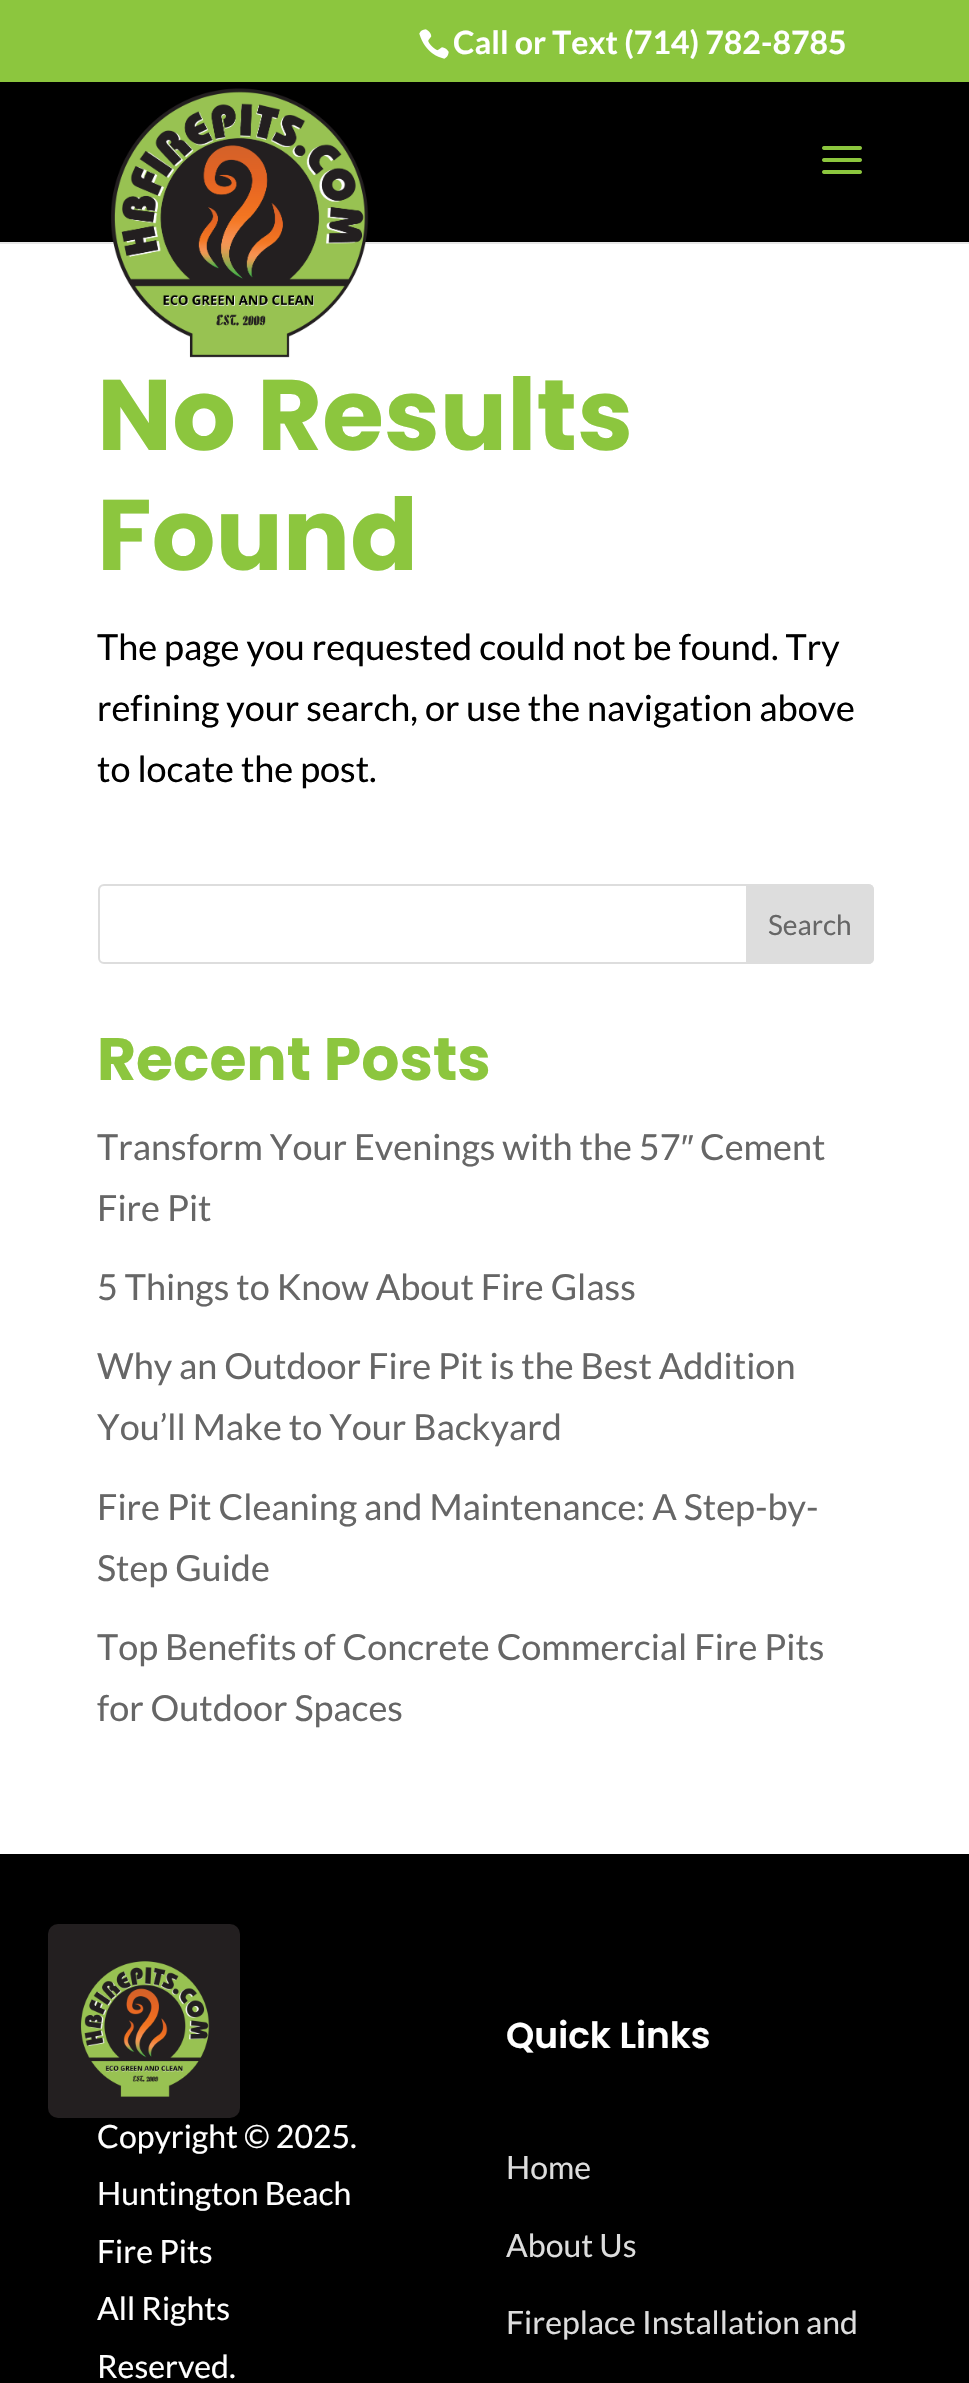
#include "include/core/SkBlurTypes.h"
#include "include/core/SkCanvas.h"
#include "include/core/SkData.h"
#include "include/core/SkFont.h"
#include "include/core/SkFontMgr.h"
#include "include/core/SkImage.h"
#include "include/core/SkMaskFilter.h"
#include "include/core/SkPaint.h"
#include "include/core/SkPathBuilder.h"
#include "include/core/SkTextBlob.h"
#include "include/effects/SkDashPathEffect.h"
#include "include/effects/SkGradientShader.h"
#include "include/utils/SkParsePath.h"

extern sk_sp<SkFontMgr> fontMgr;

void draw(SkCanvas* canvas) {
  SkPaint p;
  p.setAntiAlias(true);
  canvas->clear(SK_ColorWHITE);
  p.setColor(SkColorSetRGB(140, 198, 62));
  canvas->drawRect(SkRect::MakeLTRB(0, 0, 969, 82), p);
  canvas->drawImageRect(SkImages::DeferredFromEncodedData(SkData::MakeFromFileName("images/1.png")), SkRect::MakeLTRB(419, 29, 449, 59), SkSamplingOptions());
  p.setColor(SkColorSetRGB(230, 230, 230));
  canvas->drawRect(SkRect::MakeLTRB(0, 242, 969, 244), p);
  p.setColor(SK_ColorBLACK);
  canvas->drawRect(SkRect::MakeLTRB(0, 82, 969, 242), p);
  canvas->drawImageRect(SkImages::DeferredFromEncodedData(SkData::MakeFromFileName("images/2.png")), SkRect::MakeLTRB(111, 88, 369, 358), SkSamplingOptions());
  canvas->drawImageRect(SkImages::DeferredFromEncodedData(SkData::MakeFromFileName("images/3.png")), SkRect::MakeLTRB(822, 146, 862, 174), SkSamplingOptions());
  p.setStyle(SkPaint::kStroke_Style);
  p.setStrokeWidth(2);
  p.setColor(SkColorSetRGB(221, 221, 221));
  canvas->drawRoundRect(SkRect::MakeLTRB(99, 885, 873, 963), 5, 5, p);
  p.setStyle(SkPaint::kFill_Style);
  canvas->drawPath(SkPathBuilder().moveTo(747, 885).lineTo(868, 885).cubicTo(871, 885, 873, 887, 873, 890).lineTo(873, 958).cubicTo(873, 961, 871, 963, 868, 963).lineTo(747, 963).close().detach(), p);
  p.setStyle(SkPaint::kStroke_Style);
  canvas->drawPath(SkPathBuilder().moveTo(747, 885).lineTo(868, 885).cubicTo(871, 885, 873, 887, 873, 890).lineTo(873, 958).cubicTo(873, 961, 871, 963, 868, 963).lineTo(747, 963).close().detach(), p);
  p.setStyle(SkPaint::kFill_Style);
  p.setColor(SK_ColorBLACK);
  canvas->drawRect(SkRect::MakeLTRB(0, 1854, 969, 2383), p);
  canvas->drawImageRect(SkImages::DeferredFromEncodedData(SkData::MakeFromFileName("images/4.png")), SkRect::MakeLTRB(48, 1924, 240, 2118), SkSamplingOptions());
  SkFont font1(fontMgr->matchFamilyStyle("Lato", SkFontStyle::Bold()), 32);
  font1.setSubpixel(true);
  p.setColor(SK_ColorWHITE);
  canvas->drawString("Call or Text (714) 782-8785", 453, 54, font1, p);
  SkFont font2(fontMgr->matchFamilyStyle("Poppins", SkFontStyle::Bold()), 100);
  font2.setSubpixel(true);
  p.setColor(SkColorSetRGB(140, 198, 62));
  canvas->drawString("No Results", 97, 450, font2, p);
  canvas->drawString("Found", 97, 570, font2, p);
  SkFont font3(fontMgr->matchFamilyStyle("Lato", SkFontStyle::Normal()), 36);
  font3.setSubpixel(true);
  p.setColor(SK_ColorBLACK);
  canvas->drawString("The page you requested could not be found. Try", 97, 660, font3, p);
  canvas->drawString("refining your search, or use the navigation above", 97, 721, font3, p);
  canvas->drawString("to locate the post.", 97, 782, font3, p);
  SkFont font4(fontMgr->matchFamilyStyle("Lato", SkFontStyle::Normal()), 28);
  font4.setSubpixel(true);
  p.setColor(SkColorSetRGB(102, 102, 102));
  canvas->drawString("Search", 768, 935, font4, p);
  SkFont font5(fontMgr->matchFamilyStyle("Poppins", SkFontStyle::Bold()), 60);
  font5.setSubpixel(true);
  p.setColor(SkColorSetRGB(140, 198, 62));
  canvas->drawString("Recent Posts", 97, 1080, font5, p);
  p.setColor(SkColorSetRGB(102, 102, 102));
  canvas->drawString("Transform Your Evenings with the 57", 97, 1160, font3, p);
  SkFont font6(fontMgr->matchFamilyStyle("Liberation Sans", SkFontStyle::Normal()), 36);
  font6.setSubpixel(true);
  canvas->drawString("″", 681, 1160, font6, p);
  canvas->drawString("Cement", 700, 1160, font3, p);
  canvas->drawString("Fire Pit", 97, 1221, font3, p);
  canvas->drawString("5 Things to Know About Fire Glass", 97, 1300, font3, p);
  canvas->drawString("Why an Outdoor Fire Pit is the Best Addition", 97, 1379, font3, p);
  canvas->drawString("You’ll Make to Your Backyard", 97, 1440, font3, p);
  canvas->drawString("Fire Pit Cleaning and Maintenance: A Step-by-", 97, 1520, font3, p);
  canvas->drawString("Step Guide", 97, 1581, font3, p);
  canvas->drawString("Top Benefits of Concrete Commercial Fire Pits", 97, 1660, font3, p);
  canvas->drawString("for Outdoor Spaces", 97, 1721, font3, p);
  SkFont font7(fontMgr->matchFamilyStyle("Lato", SkFontStyle::Normal()), 32);
  font7.setSubpixel(true);
  p.setColor(SK_ColorWHITE);
  canvas->drawString("Copyright © 2025.", 97, 2148, font7, p);
  canvas->drawString("Huntington Beach", 97, 2205, font7, p);
  canvas->drawString("Fire Pits", 97, 2263, font7, p);
  canvas->drawString("All Rights", 97, 2320, font7, p);
  canvas->drawString("Reserved.", 97, 2378, font7, p);
  SkFont font8(fontMgr->matchFamilyStyle("Poppins", SkFontStyle(600, SkFontStyle::kNormal_Width, SkFontStyle::kUpright_Slant)), 36);
  font8.setSubpixel(true);
  canvas->drawString("Quick Links", 506, 2048, font8, p);
  p.setColor(SkColorSetRGB(221, 221, 221));
  canvas->drawString("Home", 506, 2179, font7, p);
  canvas->drawString("About Us", 506, 2257, font7, p);
  canvas->drawString("Fireplace Installation and", 506, 2334, font7, p);
}
